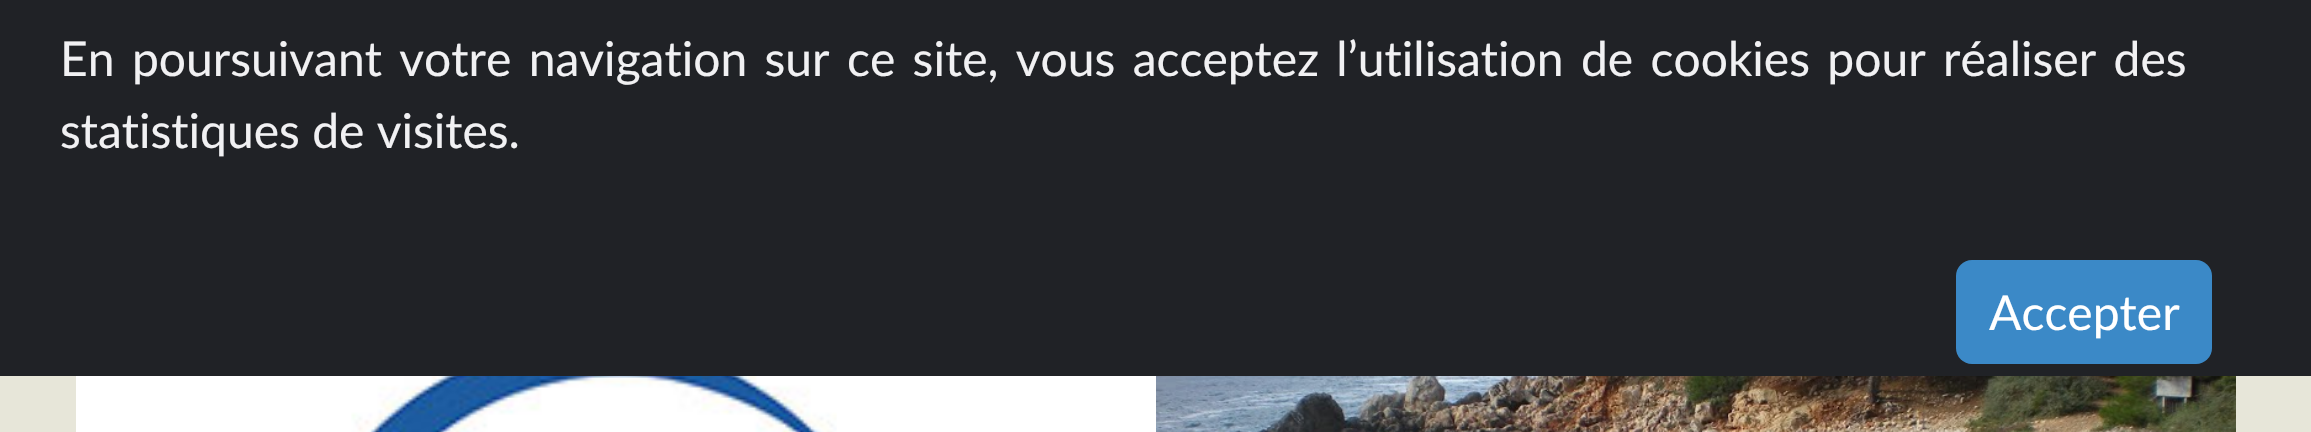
#include "include/core/SkBlurTypes.h"
#include "include/core/SkCanvas.h"
#include "include/core/SkData.h"
#include "include/core/SkFont.h"
#include "include/core/SkFontMgr.h"
#include "include/core/SkImage.h"
#include "include/core/SkMaskFilter.h"
#include "include/core/SkPaint.h"
#include "include/core/SkPathBuilder.h"
#include "include/core/SkTextBlob.h"
#include "include/effects/SkDashPathEffect.h"
#include "include/effects/SkGradientShader.h"
#include "include/utils/SkParsePath.h"

extern sk_sp<SkFontMgr> fontMgr;

void draw(SkCanvas* canvas) {
  SkPaint p;
  p.setAntiAlias(true);
  auto spacedText = [&](const char* s, float x, float y, const SkFont& font, const SkPaint& ink, float letter, float word) {
    std::vector<SkGlyphID> glyphs(font.countText(s, strlen(s), SkTextEncoding::kUTF8));
    std::vector<float> xs(glyphs.size());
    font.textToGlyphs(s, strlen(s), SkTextEncoding::kUTF8, glyphs);
    font.getXPos(glyphs, xs, x);
    float extra = 0;
    for (size_t i = 0; i < glyphs.size(); i++) {
      xs[i] += extra;
      extra += letter + word * (glyphs[i] == font.unicharToGlyph(' '));
    }
    canvas->drawTextBlob(SkTextBlob::MakeFromPosHGlyphs(glyphs, xs, y, font), 0, 0, ink);
  };
  canvas->clear(SkColorSetRGB(231, 230, 217));
  p.setColor(SkColorSetRGB(32, 34, 38));
  canvas->drawRect(SkRect::MakeLTRB(0, 0, 2311, 376), p);
  p.setColor(SkColorSetRGB(59, 137, 199));
  canvas->drawRoundRect(SkRect::MakeLTRB(1956, 260, 2212, 364), 16, 16, p);
  p.setColor(SK_ColorWHITE);
  canvas->drawRect(SkRect::MakeLTRB(76, 376, 1156, 432), p);
  canvas->drawImageRect(SkImages::DeferredFromEncodedData(SkData::MakeFromFileName("images/1.png")), SkRect::MakeLTRB(351, 376, 837, 432), SkSamplingOptions());
  canvas->drawImageRect(SkImages::DeferredFromEncodedData(SkData::MakeFromFileName("images/2.png")), SkRect::MakeLTRB(1156, 376, 2236, 432), SkSamplingOptions());
  SkFont font1(fontMgr->matchFamilyStyle("Lato", SkFontStyle::Normal()), 48);
  font1.setSubpixel(true);
  p.setColor(SkColorSetRGB(241, 241, 243));
  spacedText("En poursuivant votre navigation sur ce site, vous acceptez l’utilisation de cookies pour réaliser des", 60, 76, font1, p, 0, 5.1f);
  canvas->drawString("statistiques de visites.", 60, 148, font1, p);
  p.setColor(SK_ColorWHITE);
  canvas->drawString("Accepter", 1989, 330, font1, p);
}
